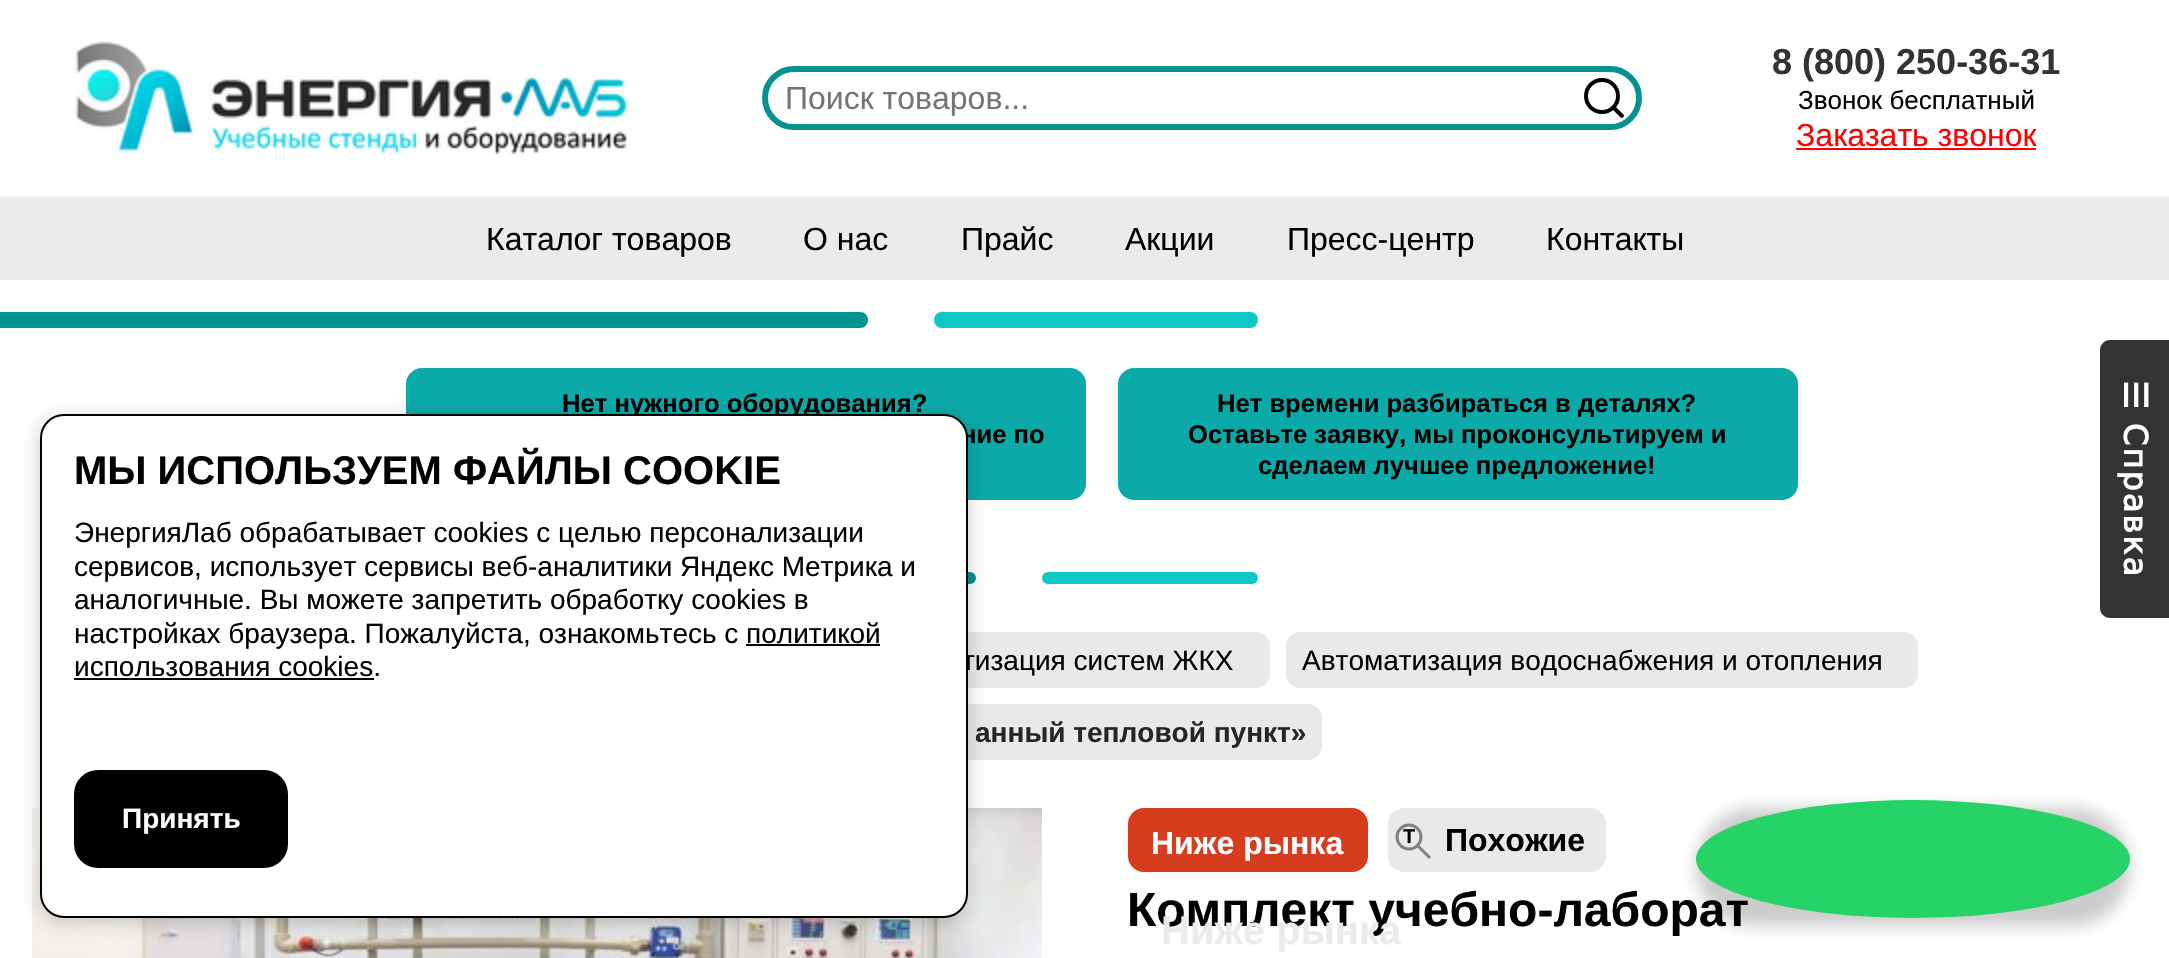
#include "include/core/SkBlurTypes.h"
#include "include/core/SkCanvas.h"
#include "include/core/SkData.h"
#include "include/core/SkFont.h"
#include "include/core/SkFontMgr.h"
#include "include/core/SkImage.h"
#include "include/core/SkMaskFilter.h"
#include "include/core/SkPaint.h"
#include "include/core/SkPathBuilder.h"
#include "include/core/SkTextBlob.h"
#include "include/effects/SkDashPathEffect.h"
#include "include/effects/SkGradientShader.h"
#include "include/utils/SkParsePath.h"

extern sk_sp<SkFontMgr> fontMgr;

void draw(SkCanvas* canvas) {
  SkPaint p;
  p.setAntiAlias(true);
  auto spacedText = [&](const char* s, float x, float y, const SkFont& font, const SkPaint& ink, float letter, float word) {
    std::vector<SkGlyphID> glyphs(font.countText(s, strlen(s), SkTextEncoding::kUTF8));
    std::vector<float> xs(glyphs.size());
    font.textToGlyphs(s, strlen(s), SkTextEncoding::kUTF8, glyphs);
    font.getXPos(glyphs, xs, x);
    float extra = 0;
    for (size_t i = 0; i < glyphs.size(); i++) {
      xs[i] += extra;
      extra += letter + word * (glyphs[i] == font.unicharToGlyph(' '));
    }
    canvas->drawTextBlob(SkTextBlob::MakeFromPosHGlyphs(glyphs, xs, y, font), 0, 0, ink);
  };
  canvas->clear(SK_ColorWHITE);
  p.setColor(SkColorSetRGB(240, 240, 240));
  canvas->drawRect(SkRect::MakeLTRB(0, 196, 2169, 198), p);
  canvas->drawImageRect(SkImages::DeferredFromEncodedData(SkData::MakeFromFileName("images/1.png")), SkRect::MakeLTRB(75, 41, 630, 155), SkSamplingOptions());
  p.setStyle(SkPaint::kStroke_Style);
  p.setStrokeWidth(6);
  p.setColor(SkColorSetRGB(5, 147, 146));
  canvas->drawRoundRect(SkRect::MakeLTRB(765, 69, 1639, 127), 29, 29, p);
  p.setStrokeWidth(4);
  p.setColor(SK_ColorBLACK);
  canvas->drawCircle(1602, 96, 16, p);
  canvas->save();
  canvas->clipPath(SkPathBuilder().moveTo(1604, 74).cubicTo(1621.5f, 74, 1636, 84.5f, 1636, 98).cubicTo(1636, 111.5f, 1621.5f, 122, 1604, 122).cubicTo(1586.5f, 122, 1572, 111.5f, 1572, 98).cubicTo(1572, 84.5f, 1586.5f, 74, 1604, 74).close().detach(), true);
  p.setStrokeCap(SkPaint::kRound_Cap);
  p.setStrokeJoin(SkPaint::kRound_Join);
  canvas->drawPath(SkPathBuilder().moveTo(1622, 116).lineTo(1613.5f, 107.5f).detach(), p);
  canvas->restore();
  p.setStyle(SkPaint::kFill_Style);
  p.setColor(SkColorSetRGB(255, 0, 0));
  canvas->drawRect(SkRect::MakeLTRB(1796, 148, 2036, 150), p);
  p.setColor(SkColorSetRGB(235, 235, 235));
  canvas->drawRect(SkRect::MakeLTRB(0, 198, 2169, 280), p);
  p.setColor(SkColorSetRGB(233, 233, 233));
  canvas->drawRoundRect(SkRect::MakeLTRB(850, 632, 1270, 688), 14, 14, p);
  canvas->drawRoundRect(SkRect::MakeLTRB(48, 704, 1322, 760), 14, 14, p);
  canvas->drawImageRect(SkImages::DeferredFromEncodedData(SkData::MakeFromFileName("images/2.png")), SkRect::MakeLTRB(32, 808, 1042, 958), SkSamplingOptions());
  p.setColor(SkColorSetRGB(11, 170, 169));
  canvas->drawRoundRect(SkRect::MakeLTRB(406, 368, 1086, 500), 16, 16, p);
  p.setColor(SkColorSetRGB(5, 147, 146));
  canvas->drawRoundRect(SkRect::MakeLTRB(108, 572, 976, 584), 6, 6, p);
  p.setColor(SkColorSetARGB(51, 0, 0, 0));
  p.setMaskFilter(SkMaskFilter::MakeBlur(kNormal_SkBlurStyle, 10));
  canvas->drawRoundRect(SkRect::MakeLTRB(40, 418, 968, 922), 24, 24, p);
  p.setMaskFilter(nullptr);
  p.setColor(SkColorSetRGB(5, 147, 146));
  canvas->drawPath(SkPathBuilder().moveTo(0, 312).lineTo(860, 312).cubicTo(864.5f, 312, 868, 315.5f, 868, 320).cubicTo(868, 324.5f, 864.5f, 328, 860, 328).lineTo(0, 328).close().detach(), p);
  p.setColor(SkColorSetRGB(13, 200, 199));
  canvas->drawRoundRect(SkRect::MakeLTRB(934, 312, 1258, 328), 8, 8, p);
  p.setColor(SkColorSetRGB(51, 51, 51));
  canvas->drawPath(SkPathBuilder().moveTo(2110, 340).lineTo(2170, 340).lineTo(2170, 618).lineTo(2110, 618).cubicTo(2104.5f, 618, 2100, 613.5f, 2100, 608).lineTo(2100, 350).cubicTo(2100, 344.5f, 2104.5f, 340, 2110, 340).close().detach(), p);
  p.setColor(SkColorSetRGB(233, 233, 233));
  canvas->drawRoundRect(SkRect::MakeLTRB(1286, 632, 1918, 688), 14, 14, p);
  p.setColor(SkColorSetRGB(214, 61, 31));
  canvas->drawRoundRect(SkRect::MakeLTRB(1128, 808, 1368, 872), 16, 16, p);
  p.setColor(SkColorSetRGB(233, 233, 233));
  canvas->drawRoundRect(SkRect::MakeLTRB(1388, 808, 1606, 872), 16, 16, p);
  p.setStyle(SkPaint::kStroke_Style);
  p.setStrokeWidth(3);
  p.setStrokeCap(SkPaint::kButt_Cap);
  p.setStrokeJoin(SkPaint::kMiter_Join);
  p.setColor(SkColorSetRGB(128, 128, 128));
  canvas->drawCircle(1409, 837, 12, p);
  canvas->drawPath(SkPathBuilder().moveTo(1418, 846).lineTo(1430, 858).detach(), p);
  p.setStyle(SkPaint::kFill_Style);
  p.setColor(SkColorSetRGB(11, 170, 169));
  canvas->drawRoundRect(SkRect::MakeLTRB(1118, 368, 1798, 500), 16, 16, p);
  p.setColor(SkColorSetRGB(13, 200, 199));
  canvas->drawRoundRect(SkRect::MakeLTRB(1042, 572, 1258, 584), 6, 6, p);
  p.setColor(SkColorSetARGB(51, 0, 0, 0));
  p.setMaskFilter(SkMaskFilter::MakeBlur(kNormal_SkBlurStyle, 8));
  canvas->drawRoundRect(SkRect::MakeLTRB(1696, 808, 2130, 926), 59, 59, p);
  p.setMaskFilter(nullptr);
  SkFont font1(fontMgr->matchFamilyStyle("Liberation Sans", SkFontStyle::Normal()), 32);
  font1.setSubpixel(true);
  p.setColor(SkColorSetRGB(117, 117, 117));
  canvas->drawString("Поиск товаров...", 785, 109, font1, p);
  SkFont font2(fontMgr->matchFamilyStyle("Liberation Sans", SkFontStyle::Bold()), 36);
  font2.setSubpixel(true);
  p.setColor(SkColorSetRGB(51, 51, 51));
  canvas->drawString("8 (800) 250-36-31", 1772, 74, font2, p);
  SkFont font3(fontMgr->matchFamilyStyle("Liberation Sans", SkFontStyle::Normal()), 26);
  font3.setSubpixel(true);
  p.setColor(SK_ColorBLACK);
  canvas->drawString("Звонок бесплатный", 1798, 109, font3, p);
  p.setColor(SkColorSetRGB(255, 0, 0));
  canvas->drawString("Заказать звонок", 1796, 146, font1, p);
  p.setColor(SK_ColorBLACK);
  canvas->drawString("Каталог товаров", 486, 250, font1, p);
  canvas->drawString("О нас", 803, 250, font1, p);
  canvas->drawString("Прайс", 961, 250, font1, p);
  canvas->drawString("Акции", 1125, 250, font1, p);
  canvas->drawString("Пресс-центр", 1287, 250, font1, p);
  canvas->drawString("Контакты", 1546, 250, font1, p);
  SkFont font4(fontMgr->matchFamilyStyle("DejaVu Sans", SkFontStyle::Bold()), 32);
  font4.setSubpixel(true);
  p.setColor(SK_ColorWHITE);
  canvas->save();
  canvas->rotate(90, 2124, 380);
  spacedText("☰ Справка", 2124, 380, font4, p, 2, 0);
  canvas->restore();
  SkFont font5(fontMgr->matchFamilyStyle("Liberation Sans", SkFontStyle::Normal()), 28);
  font5.setSubpixel(true);
  p.setColor(SK_ColorBLACK);
  canvas->drawString("тизация систем ЖКХ", 962, 670, font5, p);
  canvas->drawString("Автоматизация водоснабжения и отопления", 1302, 670, font5, p);
  SkFont font6(fontMgr->matchFamilyStyle("Liberation Sans", SkFontStyle::Bold()), 28);
  font6.setSubpixel(true);
  p.setColor(SkColorSetRGB(38, 38, 38));
  canvas->drawString("анный тепловой пункт»", 975, 742, font6, p);
  SkFont font7(fontMgr->matchFamilyStyle("Liberation Sans", SkFontStyle::Bold()), 32);
  font7.setSubpixel(true);
  p.setColor(SK_ColorWHITE);
  canvas->drawString("Ниже рынка", 1151, 854, font7, p);
  SkFont font8(fontMgr->matchFamilyStyle("Liberation Sans", SkFontStyle::Bold()), 20);
  font8.setSubpixel(true);
  p.setColor(SK_ColorBLACK);
  canvas->drawString("T", 1403, 843, font8, p);
  canvas->drawString("Похожие", 1445, 851, font7, p);
  SkFont font9(fontMgr->matchFamilyStyle("Liberation Sans", SkFontStyle::Bold()), 48);
  font9.setSubpixel(true);
  canvas->drawString("Комплект учебно-лаборат", 1127, 926, font9, p);
  SkFont font10(fontMgr->matchFamilyStyle("Liberation Sans", SkFontStyle::Bold()), 40);
  font10.setSubpixel(true);
  p.setColor(SkColorSetRGB(235, 235, 235));
  canvas->drawString("Ниже рынка", 1161, 944, font10, p);
  SkFont font11(fontMgr->matchFamilyStyle("Liberation Sans", SkFontStyle::Bold()), 25.6f);
  font11.setSubpixel(true);
  p.setColor(SK_ColorBLACK);
  canvas->drawString("Нет нужного оборудования?", 562, 412, font11, p);
  canvas->drawString("ние по", 961, 443, font11, p);
  p.setColor(SK_ColorWHITE);
  canvas->drawRoundRect(SkRect::MakeLTRB(41, 415, 967, 917), 23, 23, p);
  p.setStyle(SkPaint::kStroke_Style);
  p.setStrokeWidth(2);
  p.setColor(SK_ColorBLACK);
  canvas->drawRoundRect(SkRect::MakeLTRB(41, 415, 967, 917), 23, 23, p);
  p.setStyle(SkPaint::kFill_Style);
  canvas->drawRoundRect(SkRect::MakeLTRB(74, 770, 288, 868), 24, 24, p);
  p.setColor(SK_ColorWHITE);
  canvas->drawString("Принять", 122, 828, font6, p);
  p.setColor(SK_ColorBLACK);
  canvas->drawString("использования cookies.", 74, 676, font5, p);
  canvas->drawRect(SkRect::MakeLTRB(74, 678, 374, 680), p);
  canvas->drawRect(SkRect::MakeLTRB(746, 644, 880, 646), p);
  canvas->drawString("настройках браузера. Пожалуйста, ознакомьтесь с политикой", 74, 643, font5, p);
  canvas->drawString("аналогичные. Вы можете запретить обработку сookies в", 74, 609, font5, p);
  canvas->drawString("сервисов, использует сервисы веб-аналитики Яндекс Метрика и", 74, 576, font5, p);
  canvas->drawString("ЭнергияЛаб обрабатывает cookies с целью персонализации", 74, 542, font5, p);
  canvas->drawString("МЫ ИСПОЛЬЗУЕМ ФАЙЛЫ COOKIE", 74, 484, font10, p);
  canvas->drawString("Нет времени разбираться в деталях?", 1217, 412, font11, p);
  canvas->drawString("Оставьте заявку, мы проконсультируем и", 1188, 443, font11, p);
  canvas->drawString("сделаем лучшее предложение!", 1258, 474, font11, p);
  p.setColor(SkColorSetRGB(37, 211, 102));
  canvas->drawOval(SkRect::MakeLTRB(1696, 800, 2130, 918), p);
}
